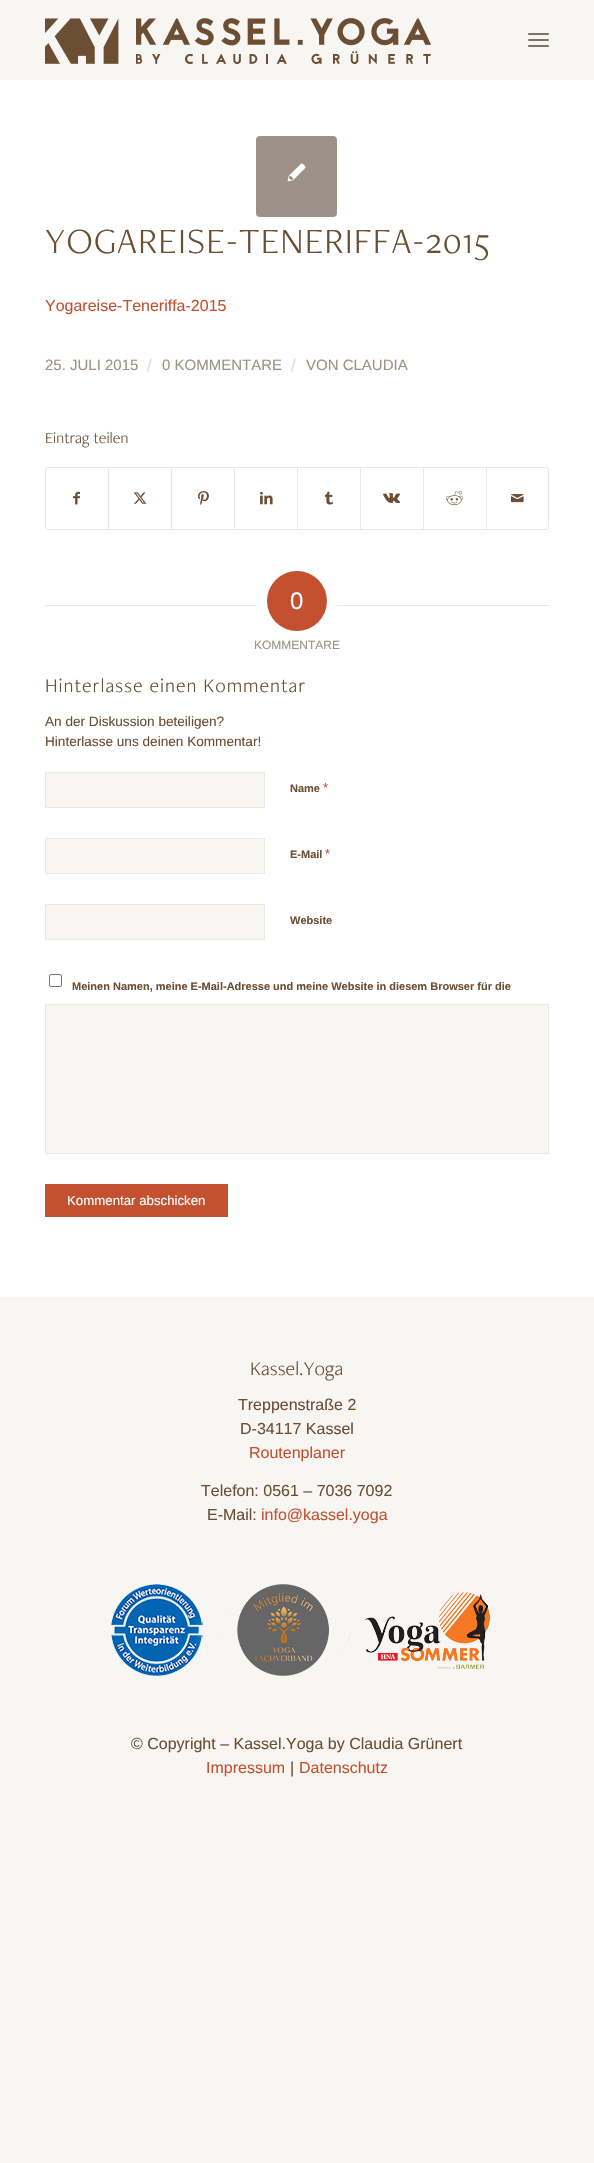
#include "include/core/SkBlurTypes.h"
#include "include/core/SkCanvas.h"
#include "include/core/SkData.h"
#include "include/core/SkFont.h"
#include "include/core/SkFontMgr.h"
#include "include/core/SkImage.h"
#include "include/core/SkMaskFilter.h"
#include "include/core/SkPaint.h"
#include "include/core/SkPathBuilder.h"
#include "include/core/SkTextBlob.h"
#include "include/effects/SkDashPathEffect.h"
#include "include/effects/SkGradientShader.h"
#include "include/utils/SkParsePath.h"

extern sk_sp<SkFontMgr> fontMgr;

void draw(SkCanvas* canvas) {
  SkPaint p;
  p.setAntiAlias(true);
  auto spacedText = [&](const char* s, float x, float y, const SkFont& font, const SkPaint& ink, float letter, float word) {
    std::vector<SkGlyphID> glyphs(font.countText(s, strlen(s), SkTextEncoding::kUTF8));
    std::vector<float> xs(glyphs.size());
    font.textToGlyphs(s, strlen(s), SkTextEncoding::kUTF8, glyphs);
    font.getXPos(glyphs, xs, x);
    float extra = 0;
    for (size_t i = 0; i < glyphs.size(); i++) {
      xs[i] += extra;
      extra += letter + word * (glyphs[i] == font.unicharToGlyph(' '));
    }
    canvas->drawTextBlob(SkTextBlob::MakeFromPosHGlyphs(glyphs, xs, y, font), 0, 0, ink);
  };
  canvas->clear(SkColorSetRGB(248, 246, 242));
  canvas->drawImageRect(SkImages::DeferredFromEncodedData(SkData::MakeFromFileName("images/1.png")), SkRect::MakeLTRB(45, 18, 431, 64), SkSamplingOptions());
  p.setColor(SkColorSetRGB(127, 114, 100));
  canvas->drawRoundRect(SkRect::MakeLTRB(528, 39, 549, 41), 1, 1, p);
  canvas->drawRoundRect(SkRect::MakeLTRB(528, 33, 549, 35), 1, 1, p);
  canvas->drawRoundRect(SkRect::MakeLTRB(528, 45, 549, 47), 1, 1, p);
  p.setColor(SK_ColorWHITE);
  canvas->drawRect(SkRect::MakeLTRB(0, 80, 594, 1297), p);
  p.setColor(SkColorSetRGB(156, 146, 136));
  canvas->drawRoundRect(SkRect::MakeLTRB(256, 136, 337, 217), 4, 4, p);
  canvas->drawImageRect(SkImages::DeferredFromEncodedData(SkData::MakeFromFileName("images/2.png")), SkRect::MakeLTRB(287, 163, 306, 182), SkSamplingOptions());
  p.setStyle(SkPaint::kStroke_Style);
  p.setStrokeWidth(1);
  p.setColor(SkColorSetRGB(235, 232, 226));
  canvas->drawRoundRect(SkRect::MakeLTRB(45.5f, 467.5f, 548.5f, 529.5f), 2.5f, 2.5f, p);
  canvas->drawImageRect(SkImages::DeferredFromEncodedData(SkData::MakeFromFileName("images/3.png")), SkRect::MakeLTRB(73, 491, 80, 505), SkSamplingOptions());
  p.setStyle(SkPaint::kFill_Style);
  canvas->drawRect(SkRect::MakeLTRB(108, 468, 109, 529), p);
  canvas->drawImageRect(SkImages::DeferredFromEncodedData(SkData::MakeFromFileName("images/4.png")), SkRect::MakeLTRB(133, 492, 147, 504), SkSamplingOptions());
  canvas->drawRect(SkRect::MakeLTRB(171, 468, 172, 529), p);
  canvas->drawImageRect(SkImages::DeferredFromEncodedData(SkData::MakeFromFileName("images/5.png")), SkRect::MakeLTRB(198, 491, 209, 505), SkSamplingOptions());
  canvas->drawRect(SkRect::MakeLTRB(234, 468, 235, 529), p);
  canvas->drawImageRect(SkImages::DeferredFromEncodedData(SkData::MakeFromFileName("images/6.png")), SkRect::MakeLTRB(260, 491, 273, 505), SkSamplingOptions());
  canvas->drawRect(SkRect::MakeLTRB(297, 468, 298, 529), p);
  canvas->drawImageRect(SkImages::DeferredFromEncodedData(SkData::MakeFromFileName("images/7.png")), SkRect::MakeLTRB(325, 491, 333, 505), SkSamplingOptions());
  canvas->drawRect(SkRect::MakeLTRB(360, 468, 361, 529), p);
  canvas->drawImageRect(SkImages::DeferredFromEncodedData(SkData::MakeFromFileName("images/8.png")), SkRect::MakeLTRB(383, 493, 400, 503), SkSamplingOptions());
  canvas->drawRect(SkRect::MakeLTRB(423, 468, 424, 529), p);
  canvas->drawImageRect(SkImages::DeferredFromEncodedData(SkData::MakeFromFileName("images/9.png")), SkRect::MakeLTRB(446, 491, 463, 506), SkSamplingOptions());
  canvas->drawRect(SkRect::MakeLTRB(486, 468, 487, 529), p);
  canvas->drawImageRect(SkImages::DeferredFromEncodedData(SkData::MakeFromFileName("images/10.png")), SkRect::MakeLTRB(511, 494, 524, 503), SkSamplingOptions());
  canvas->drawRect(SkRect::MakeLTRB(45, 605, 257, 606), p);
  p.setColor(SkColorSetRGB(195, 81, 47));
  canvas->drawCircle(297, 601, 30, p);
  p.setColor(SkColorSetRGB(235, 232, 226));
  canvas->drawRect(SkRect::MakeLTRB(337, 605, 549, 606), p);
  p.setColor(SkColorSetRGB(248, 246, 242));
  canvas->drawRect(SkRect::MakeLTRB(45.5f, 772.5f, 264.5f, 807.5f), p);
  p.setStyle(SkPaint::kStroke_Style);
  p.setColor(SkColorSetRGB(235, 232, 226));
  canvas->drawRect(SkRect::MakeLTRB(45.5f, 772.5f, 264.5f, 807.5f), p);
  p.setStyle(SkPaint::kFill_Style);
  p.setColor(SkColorSetRGB(248, 246, 242));
  canvas->drawRect(SkRect::MakeLTRB(45.5f, 838.5f, 264.5f, 873.5f), p);
  p.setStyle(SkPaint::kStroke_Style);
  p.setColor(SkColorSetRGB(235, 232, 226));
  canvas->drawRect(SkRect::MakeLTRB(45.5f, 838.5f, 264.5f, 873.5f), p);
  p.setStyle(SkPaint::kFill_Style);
  p.setColor(SkColorSetRGB(248, 246, 242));
  canvas->drawRect(SkRect::MakeLTRB(45.5f, 904.5f, 264.5f, 939.5f), p);
  p.setStyle(SkPaint::kStroke_Style);
  p.setColor(SkColorSetRGB(235, 232, 226));
  canvas->drawRect(SkRect::MakeLTRB(45.5f, 904.5f, 264.5f, 939.5f), p);
  p.setColor(SkColorSetRGB(118, 118, 118));
  canvas->drawRoundRect(SkRect::MakeLTRB(49.5f, 974.5f, 61.5f, 986.5f), 1.5f, 1.5f, p);
  p.setStyle(SkPaint::kFill_Style);
  p.setColor(SkColorSetRGB(248, 246, 242));
  canvas->drawRect(SkRect::MakeLTRB(45.5f, 1004.5f, 548.5f, 1153.5f), p);
  p.setStyle(SkPaint::kStroke_Style);
  p.setColor(SkColorSetRGB(235, 232, 226));
  canvas->drawRect(SkRect::MakeLTRB(45.5f, 1004.5f, 548.5f, 1153.5f), p);
  p.setStyle(SkPaint::kFill_Style);
  p.setColor(SkColorSetRGB(195, 81, 47));
  canvas->drawRect(SkRect::MakeLTRB(45, 1184, 228, 1217), p);
  canvas->drawImageRect(SkImages::DeferredFromEncodedData(SkData::MakeFromFileName("images/11.png")), SkRect::MakeLTRB(111, 1584, 490, 1676), SkSamplingOptions());
  SkFont font1(fontMgr->matchFamilyStyle("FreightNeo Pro", SkFontStyle(300, SkFontStyle::kNormal_Width, SkFontStyle::kUpright_Slant)), 36.75f);
  font1.setSubpixel(true);
  p.setColor(SkColorSetRGB(108, 78, 51));
  spacedText("YOGAREISE-TENERIFFA-2015", 45, 253, font1, p, 1, 0);
  SkFont font2(fontMgr->matchFamilyStyle("Liberation Sans", SkFontStyle::Normal()), 16);
  font2.setSubpixel(true);
  p.setColor(SkColorSetRGB(195, 81, 47));
  canvas->drawString("Yogareise-Teneriffa-2015", 45, 311, font2, p);
  SkFont font3(fontMgr->matchFamilyStyle("Liberation Sans", SkFontStyle::Normal()), 15);
  font3.setSubpixel(true);
  p.setColor(SkColorSetRGB(156, 146, 136));
  canvas->drawString("25. JULI 2015", 45, 370, font3, p);
  SkFont font4(fontMgr->matchFamilyStyle("Liberation Sans", SkFontStyle::Normal()), 17);
  font4.setSubpixel(true);
  p.setColor(SkColorSetRGB(225, 222, 219));
  canvas->drawString("/", 147, 371, font4, p);
  p.setColor(SkColorSetRGB(156, 146, 136));
  canvas->drawString("0 KOMMENTARE", 162, 370, font3, p);
  p.setColor(SkColorSetRGB(225, 222, 219));
  canvas->drawString("/", 291, 371, font4, p);
  p.setColor(SkColorSetRGB(156, 146, 136));
  canvas->drawString("VON CLAUDIA", 306, 370, font3, p);
  SkFont font5(fontMgr->matchFamilyStyle("FreightNeo Pro", SkFontStyle(300, SkFontStyle::kNormal_Width, SkFontStyle::kUpright_Slant)), 16);
  font5.setSubpixel(true);
  p.setColor(SkColorSetRGB(108, 78, 51));
  canvas->drawString("Eintrag teilen", 45, 443, font5, p);
  SkFont font6(fontMgr->matchFamilyStyle("Liberation Sans", SkFontStyle::Normal()), 24);
  font6.setSubpixel(true);
  p.setColor(SK_ColorWHITE);
  canvas->drawString("0", 290, 609, font6, p);
  SkFont font7(fontMgr->matchFamilyStyle("Liberation Sans", SkFontStyle::Normal()), 12);
  font7.setSubpixel(true);
  p.setColor(SkColorSetRGB(156, 146, 136));
  canvas->drawString("KOMMENTARE", 254, 649, font7, p);
  SkFont font8(fontMgr->matchFamilyStyle("FreightNeo Pro", SkFontStyle(300, SkFontStyle::kNormal_Width, SkFontStyle::kUpright_Slant)), 20);
  font8.setSubpixel(true);
  p.setColor(SkColorSetRGB(108, 78, 51));
  spacedText("Hinterlasse einen Kommentar", 45, 692, font8, p, 1, 0);
  SkFont font9(fontMgr->matchFamilyStyle("Liberation Sans", SkFontStyle::Normal()), 13.6f);
  font9.setSubpixel(true);
  canvas->drawString("An der Diskussion beteiligen?", 45, 726, font9, p);
  canvas->drawString("Hinterlasse uns deinen Kommentar!", 45, 746, font9, p);
  SkFont font10(fontMgr->matchFamilyStyle("Liberation Sans", SkFontStyle::Bold()), 11);
  font10.setSubpixel(true);
  canvas->drawString("Name", 290, 792, font10, p);
  SkFont font11(fontMgr->matchFamilyStyle("Liberation Sans", SkFontStyle::Normal()), 13);
  font11.setSubpixel(true);
  p.setColor(SkColorSetRGB(195, 81, 47));
  canvas->drawString("*", 323, 792, font11, p);
  p.setColor(SkColorSetRGB(108, 78, 51));
  canvas->drawString("E-Mail", 290, 858, font10, p);
  p.setColor(SkColorSetRGB(195, 81, 47));
  canvas->drawString("*", 325, 858, font11, p);
  p.setColor(SkColorSetRGB(108, 78, 51));
  canvas->drawString("Website", 290, 924, font10, p);
  canvas->drawString("Meinen Namen, meine E-Mail-Adresse und meine Website in diesem Browser für die", 72, 990, font10, p);
  SkFont font12(fontMgr->matchFamilyStyle("Liberation Sans", SkFontStyle::Normal()), 13.25f);
  font12.setSubpixel(true);
  p.setColor(SK_ColorWHITE);
  canvas->drawString("Kommentar abschicken", 67, 1205, font12, p);
  p.setColor(SkColorSetRGB(108, 78, 51));
  canvas->drawString("Kassel.Yoga", 250, 1375, font8, p);
  canvas->drawString("Treppenstraße 2", 238, 1410, font2, p);
  canvas->drawString("D-34117 Kassel", 240, 1434, font2, p);
  p.setColor(SkColorSetRGB(195, 81, 47));
  canvas->drawString("Routenplaner", 249, 1458, font2, p);
  p.setColor(SkColorSetRGB(108, 78, 51));
  canvas->drawString("Telefon: 0561 – 7036 7092", 201, 1496, font2, p);
  canvas->drawString("E-Mail:", 207, 1520, font2, p);
  p.setColor(SkColorSetRGB(195, 81, 47));
  canvas->drawString("info@kassel.yoga", 261, 1520, font2, p);
  p.setColor(SkColorSetRGB(108, 78, 51));
  canvas->drawString("© Copyright – Kassel.Yoga by Claudia Grünert", 131, 1749, font2, p);
  p.setColor(SkColorSetRGB(195, 81, 47));
  canvas->drawString("Impressum", 206, 1773, font2, p);
  p.setColor(SkColorSetRGB(108, 78, 51));
  canvas->drawString("|", 290, 1773, font2, p);
  p.setColor(SkColorSetRGB(195, 81, 47));
  canvas->drawString("Datenschutz", 299, 1773, font2, p);
}
